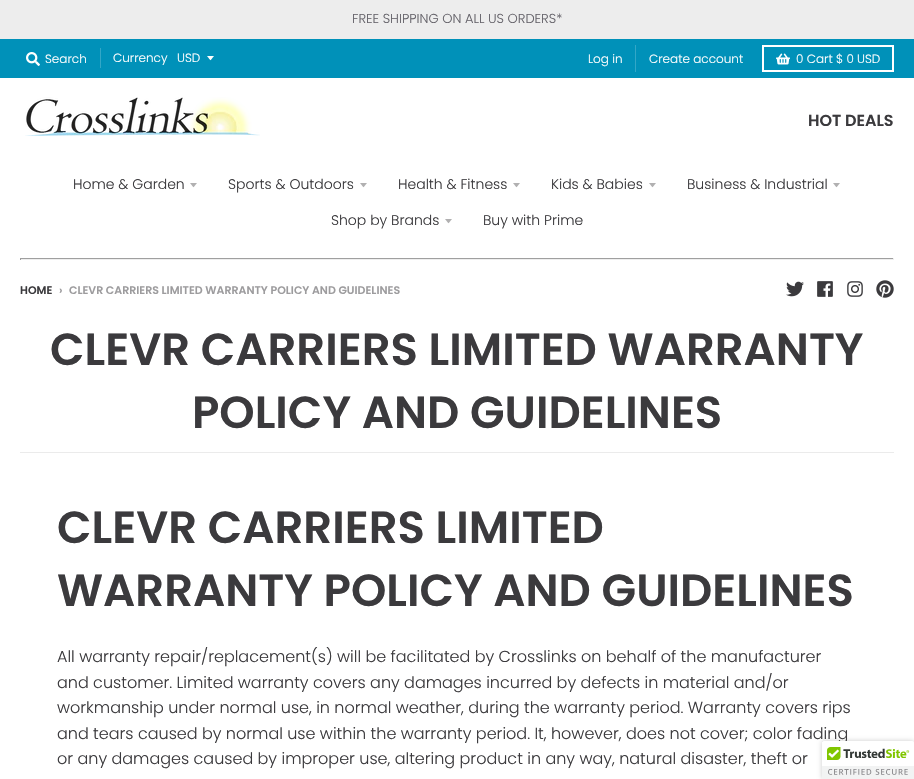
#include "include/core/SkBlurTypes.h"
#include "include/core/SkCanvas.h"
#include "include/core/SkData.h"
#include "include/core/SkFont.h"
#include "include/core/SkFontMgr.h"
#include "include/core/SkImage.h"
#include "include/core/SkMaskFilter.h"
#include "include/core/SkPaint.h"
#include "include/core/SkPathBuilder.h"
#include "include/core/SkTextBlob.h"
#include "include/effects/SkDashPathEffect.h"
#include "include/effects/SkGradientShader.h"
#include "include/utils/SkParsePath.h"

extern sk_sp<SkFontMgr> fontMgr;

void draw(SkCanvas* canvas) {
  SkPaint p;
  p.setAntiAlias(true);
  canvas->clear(SK_ColorWHITE);
  p.setColor(SkColorSetRGB(237, 237, 237));
  canvas->drawRect(SkRect::MakeLTRB(0, 0, 914, 39), p);
  p.setColor(SkColorSetRGB(0, 145, 185));
  canvas->drawRect(SkRect::MakeLTRB(0, 39, 914, 78), p);
  canvas->drawImageRect(SkImages::DeferredFromEncodedData(SkData::MakeFromFileName("images/1.png")), SkRect::MakeLTRB(26, 52, 40, 66), SkSamplingOptions());
  p.setColor(SkColorSetRGB(51, 167, 199));
  canvas->drawRect(SkRect::MakeLTRB(100, 48, 101, 68), p);
  p.setColor(SK_ColorWHITE);
  canvas->drawPath(SkPathBuilder().moveTo(207, 56).cubicTo(211.5f, 61.5f, 209.5f, 61.5f, 214, 56).close().detach(), p);
  p.setColor(SkColorSetRGB(51, 167, 199));
  canvas->drawRect(SkRect::MakeLTRB(635, 45, 636, 72), p);
  p.setStyle(SkPaint::kStroke_Style);
  p.setStrokeWidth(2);
  p.setColor(SK_ColorWHITE);
  canvas->drawRect(SkRect::MakeLTRB(763, 46, 893, 71), p);
  canvas->drawImageRect(SkImages::DeferredFromEncodedData(SkData::MakeFromFileName("images/2.png")), SkRect::MakeLTRB(776, 53, 790, 65), SkSamplingOptions());
  canvas->drawImageRect(SkImages::DeferredFromEncodedData(SkData::MakeFromFileName("images/3.png")), SkRect::MakeLTRB(25, 97, 260, 136), SkSamplingOptions());
  p.setStyle(SkPaint::kFill_Style);
  p.setColor(SkColorSetRGB(177, 176, 177));
  canvas->drawPath(SkPathBuilder().moveTo(190, 183).cubicTo(194.5f, 188.5f, 192.5f, 188.5f, 197, 183).close().detach(), p);
  canvas->drawPath(SkPathBuilder().moveTo(360, 183).cubicTo(364.5f, 188.5f, 362.5f, 188.5f, 367, 183).close().detach(), p);
  canvas->drawPath(SkPathBuilder().moveTo(513, 183).cubicTo(517.5f, 188.5f, 515.5f, 188.5f, 520, 183).close().detach(), p);
  canvas->drawPath(SkPathBuilder().moveTo(649, 183).cubicTo(653.5f, 188.5f, 651.5f, 188.5f, 656, 183).close().detach(), p);
  canvas->drawPath(SkPathBuilder().moveTo(833, 183).cubicTo(837.5f, 188.5f, 835.5f, 188.5f, 840, 183).close().detach(), p);
  canvas->drawPath(SkPathBuilder().moveTo(445, 219).cubicTo(449.5f, 224.5f, 447.5f, 224.5f, 452, 219).close().detach(), p);
  p.setColor(SkColorSetRGB(159, 159, 159));
  canvas->drawRect(SkRect::MakeLTRB(20, 258, 894, 259), p);
  p.setColor(SkColorSetRGB(238, 238, 238));
  canvas->drawRect(SkRect::MakeLTRB(893, 258, 894, 260), p);
  canvas->drawRect(SkRect::MakeLTRB(20, 259, 894, 260), p);
  p.setColor(SkColorSetRGB(159, 159, 159));
  canvas->drawRect(SkRect::MakeLTRB(20, 258, 21, 260), p);
  canvas->drawImageRect(SkImages::DeferredFromEncodedData(SkData::MakeFromFileName("images/4.png")), SkRect::MakeLTRB(786, 281, 804, 297), SkSamplingOptions());
  canvas->drawImageRect(SkImages::DeferredFromEncodedData(SkData::MakeFromFileName("images/5.png")), SkRect::MakeLTRB(817, 281, 833, 297), SkSamplingOptions());
  canvas->drawImageRect(SkImages::DeferredFromEncodedData(SkData::MakeFromFileName("images/6.png")), SkRect::MakeLTRB(847, 281, 863, 297), SkSamplingOptions());
  canvas->drawImageRect(SkImages::DeferredFromEncodedData(SkData::MakeFromFileName("images/7.png")), SkRect::MakeLTRB(876, 280, 894, 298), SkSamplingOptions());
  p.setColor(SkColorSetRGB(235, 235, 235));
  canvas->drawRect(SkRect::MakeLTRB(20, 452, 894, 453), p);
  p.setColor(SkColorSetARGB(51, 0, 0, 0));
  p.setMaskFilter(SkMaskFilter::MakeBlur(kNormal_SkBlurStyle, 2.5f));
  canvas->drawRoundRect(SkRect::MakeLTRB(822, 741, 914, 779), 2, 2, p);
  p.setMaskFilter(nullptr);
  SkFont font1(fontMgr->matchFamilyStyle("Poppins", SkFontStyle(300, SkFontStyle::kNormal_Width, SkFontStyle::kUpright_Slant)), 13);
  font1.setSubpixel(true);
  p.setColor(SkColorSetRGB(101, 99, 106));
  canvas->drawString("FREE SHIPPING ON ALL US ORDERS*", 352, 23, font1, p);
  SkFont font2(fontMgr->matchFamilyStyle("Poppins", SkFontStyle(300, SkFontStyle::kNormal_Width, SkFontStyle::kUpright_Slant)), 12);
  font2.setSubpixel(true);
  p.setColor(SK_ColorWHITE);
  canvas->drawString("Search", 45, 63, font2, p);
  canvas->drawString("Currency", 113, 62, font2, p);
  canvas->drawString("USD", 177, 62, font2, p);
  canvas->drawString("Log in", 588, 63, font2, p);
  canvas->drawString("Create account", 649, 63, font2, p);
  canvas->drawString("0 Cart $ 0 USD", 796, 63, font2, p);
  SkFont font3(fontMgr->matchFamilyStyle("Poppins", SkFontStyle(600, SkFontStyle::kNormal_Width, SkFontStyle::kUpright_Slant)), 16);
  font3.setSubpixel(true);
  p.setColor(SkColorSetRGB(59, 58, 61));
  canvas->drawString("HOT DEALS", 808, 126, font3, p);
  SkFont font4(fontMgr->matchFamilyStyle("Poppins", SkFontStyle(300, SkFontStyle::kNormal_Width, SkFontStyle::kUpright_Slant)), 14);
  font4.setSubpixel(true);
  canvas->drawString("Home & Garden", 73, 189, font4, p);
  canvas->drawString("Sports & Outdoors", 228, 189, font4, p);
  canvas->drawString("Health & Fitness", 398, 189, font4, p);
  canvas->drawString("Kids & Babies", 551, 189, font4, p);
  canvas->drawString("Business & Industrial", 687, 189, font4, p);
  canvas->drawString("Shop by Brands", 331, 225, font4, p);
  canvas->drawString("Buy with Prime", 483, 225, font4, p);
  SkFont font5(fontMgr->matchFamilyStyle("Poppins", SkFontStyle(600, SkFontStyle::kNormal_Width, SkFontStyle::kUpright_Slant)), 11);
  font5.setSubpixel(true);
  canvas->drawString("HOME", 20, 294, font5, p);
  p.setColor(SkColorSetRGB(157, 156, 158));
  canvas->drawString("›", 59, 294, font5, p);
  canvas->drawString("CLEVR CARRIERS LIMITED WARRANTY POLICY AND GUIDELINES", 69, 294, font5, p);
  SkFont font6(fontMgr->matchFamilyStyle("Poppins", SkFontStyle(600, SkFontStyle::kNormal_Width, SkFontStyle::kUpright_Slant)), 45);
  font6.setSubpixel(true);
  p.setColor(SkColorSetRGB(59, 58, 61));
  canvas->drawString("CLEVR CARRIERS LIMITED WARRANTY", 50, 365, font6, p);
  canvas->drawString("POLICY AND GUIDELINES", 192, 428, font6, p);
  canvas->drawString("CLEVR CARRIERS LIMITED", 57, 543, font6, p);
  canvas->drawString("WARRANTY POLICY AND GUIDELINES", 57, 606, font6, p);
  SkFont font7(fontMgr->matchFamilyStyle("Poppins", SkFontStyle(300, SkFontStyle::kNormal_Width, SkFontStyle::kUpright_Slant)), 16);
  font7.setSubpixel(true);
  canvas->drawString("All warranty repair/replacement(s) will be facilitated by Crosslinks on behalf of the manufacturer", 57, 662, font7, p);
  canvas->drawString("and customer. Limited warranty covers any damages incurred by defects in material and/or", 57, 688, font7, p);
  canvas->drawString("workmanship under normal use, in normal weather, during the warranty period. Warranty covers rips", 57, 713, font7, p);
  canvas->drawString("and tears caused by normal use within the warranty period. It, however, does not cover; color fading", 57, 739, font7, p);
  canvas->drawString("or any damages caused by improper use, altering product in any way, natural disaster, theft or", 57, 764, font7, p);
  p.setColor(SK_ColorWHITE);
  canvas->drawPath(SkPathBuilder().moveTo(824, 741).lineTo(914, 741).lineTo(914, 779).lineTo(822, 779).lineTo(822, 743).cubicTo(822, 742, 823, 741, 824, 741).close().detach(), p);
  canvas->drawImageRect(SkImages::DeferredFromEncodedData(SkData::MakeFromFileName("images/8.png")), SkRect::MakeLTRB(822, 741, 914, 779), SkSamplingOptions());
}
